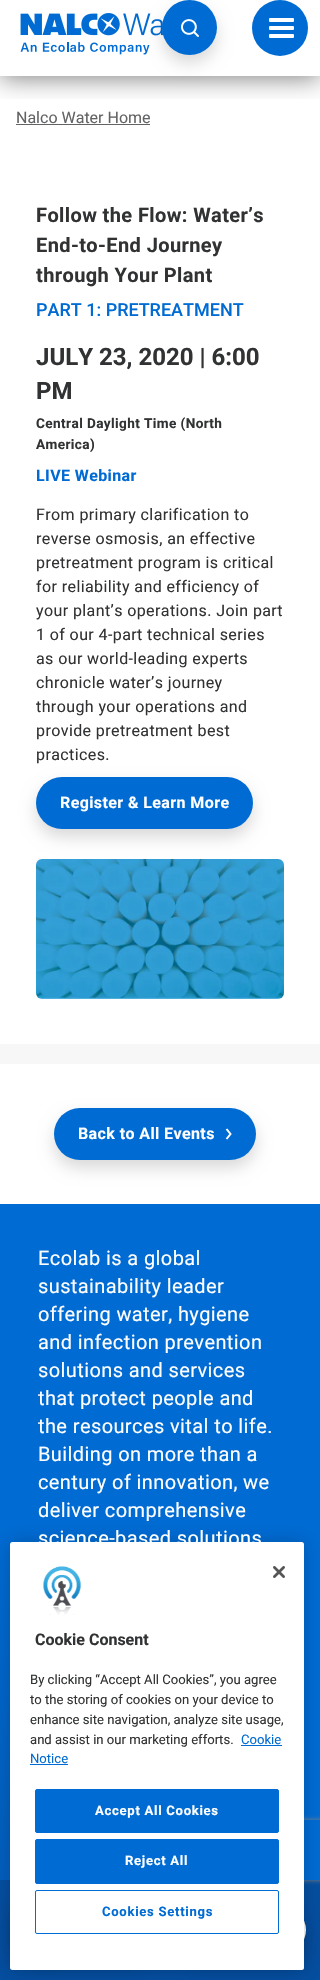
#include "include/core/SkBlurTypes.h"
#include "include/core/SkCanvas.h"
#include "include/core/SkData.h"
#include "include/core/SkFont.h"
#include "include/core/SkFontMgr.h"
#include "include/core/SkImage.h"
#include "include/core/SkMaskFilter.h"
#include "include/core/SkPaint.h"
#include "include/core/SkPathBuilder.h"
#include "include/core/SkTextBlob.h"
#include "include/effects/SkDashPathEffect.h"
#include "include/effects/SkGradientShader.h"
#include "include/utils/SkParsePath.h"

extern sk_sp<SkFontMgr> fontMgr;

void draw(SkCanvas* canvas) {
  SkPaint p;
  p.setAntiAlias(true);
  auto spacedText = [&](const char* s, float x, float y, const SkFont& font, const SkPaint& ink, float letter, float word) {
    std::vector<SkGlyphID> glyphs(font.countText(s, strlen(s), SkTextEncoding::kUTF8));
    std::vector<float> xs(glyphs.size());
    font.textToGlyphs(s, strlen(s), SkTextEncoding::kUTF8, glyphs);
    font.getXPos(glyphs, xs, x);
    float extra = 0;
    for (size_t i = 0; i < glyphs.size(); i++) {
      xs[i] += extra;
      extra += letter + word * (glyphs[i] == font.unicharToGlyph(' '));
    }
    canvas->drawTextBlob(SkTextBlob::MakeFromPosHGlyphs(glyphs, xs, y, font), 0, 0, ink);
  };
  canvas->clear(SK_ColorWHITE);
  canvas->save();
  canvas->clipRect(SkRect::MakeLTRB(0, 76, 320, 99));
  p.setColor(SkColorSetARGB(128, 0, 0, 0));
  p.setMaskFilter(SkMaskFilter::MakeBlur(kNormal_SkBlurStyle, 12));
  canvas->drawRect(SkRect::MakeLTRB(0, -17, 320, 78), p);
  p.setMaskFilter(nullptr);
  canvas->restore();
  canvas->drawImageRect(SkImages::DeferredFromEncodedData(SkData::MakeFromFileName("images/1.png")), SkRect::MakeLTRB(20, 13, 163, 55), SkSamplingOptions());
  p.setColor(SkColorSetARGB(38, 0, 0, 0));
  p.setMaskFilter(SkMaskFilter::MakeBlur(kNormal_SkBlurStyle, 8));
  canvas->drawRoundRect(SkRect::MakeLTRB(162, 8, 217, 63), 27.5f, 27.5f, p);
  p.setMaskFilter(nullptr);
  p.setColor(SkColorSetRGB(0, 107, 211));
  canvas->drawCircle(189.5f, 27.5f, 27.5f, p);
  canvas->drawImageRect(SkImages::DeferredFromEncodedData(SkData::MakeFromFileName("images/2.png")), SkRect::MakeLTRB(181, 19, 199, 37), SkSamplingOptions());
  canvas->drawCircle(280, 28, 28, p);
  p.setColor(SK_ColorWHITE);
  canvas->drawRoundRect(SkRect::MakeLTRB(269, 18, 294, 22), 1, 1, p);
  canvas->drawRoundRect(SkRect::MakeLTRB(269, 26, 294, 30), 1, 1, p);
  canvas->drawRoundRect(SkRect::MakeLTRB(269, 34, 294, 38), 1, 1, p);
  p.setColor(SkColorSetRGB(97, 99, 101));
  canvas->drawRect(SkRect::MakeLTRB(16, 124, 150, 125), p);
  canvas->drawImageRect(SkImages::DeferredFromEncodedData(SkData::MakeFromFileName("images/3.png")), SkRect::MakeLTRB(36, 859, 284, 999), SkSamplingOptions());
  p.setColor(SkColorSetARGB(38, 0, 0, 0));
  p.setMaskFilter(SkMaskFilter::MakeBlur(kNormal_SkBlurStyle, 8));
  canvas->drawRoundRect(SkRect::MakeLTRB(36, 785, 253, 837), 26, 26, p);
  p.setMaskFilter(nullptr);
  p.setColor(SkColorSetRGB(0, 107, 211));
  canvas->drawRoundRect(SkRect::MakeLTRB(36, 777, 253, 829), 26, 26, p);
  p.setColor(SkColorSetRGB(247, 247, 247));
  canvas->drawRect(SkRect::MakeLTRB(0, 1044, 320, 1064), p);
  p.setColor(SkColorSetARGB(38, 0, 0, 0));
  p.setMaskFilter(SkMaskFilter::MakeBlur(kNormal_SkBlurStyle, 8));
  canvas->drawRoundRect(SkRect::MakeLTRB(54, 1116, 256, 1168), 26, 26, p);
  p.setMaskFilter(nullptr);
  p.setColor(SkColorSetRGB(0, 107, 211));
  canvas->drawRoundRect(SkRect::MakeLTRB(54, 1108, 256, 1160), 26, 26, p);
  p.setStyle(SkPaint::kStroke_Style);
  p.setStrokeWidth(2);
  p.setColor(SK_ColorWHITE);
  canvas->drawPath(SkPathBuilder().moveTo(226.5f, 1129).lineTo(230.5f, 1134).lineTo(226.5f, 1139).detach(), p);
  canvas->drawImageRect(SkImages::DeferredFromEncodedData(SkData::MakeFromFileName("images/4.png")), SkRect::MakeLTRB(0, 1204, 320, 1880), SkSamplingOptions());
  p.setStyle(SkPaint::kFill_Style);
  p.setColor(SkColorSetRGB(4, 78, 160));
  canvas->drawRect(SkRect::MakeLTRB(0, 1880, 320, 1980), p);
  p.setColor(SkColorSetARGB(38, 0, 0, 0));
  p.setMaskFilter(SkMaskFilter::MakeBlur(kNormal_SkBlurStyle, 10));
  canvas->drawRoundRect(SkRect::MakeLTRB(13, 1895, 71, 1953), 29, 29, p);
  p.setMaskFilter(nullptr);
  p.setColor(SkColorSetARGB(41, 0, 0, 0));
  p.setMaskFilter(SkMaskFilter::MakeBlur(kNormal_SkBlurStyle, 10));
  canvas->drawRoundRect(SkRect::MakeLTRB(14, 1918, 152, 1964), 23, 23, p);
  p.setMaskFilter(nullptr);
  p.setMaskFilter(SkMaskFilter::MakeBlur(kNormal_SkBlurStyle, 10));
  canvas->drawRoundRect(SkRect::MakeLTRB(182, 1918, 306, 1964), 23, 23, p);
  p.setMaskFilter(nullptr);
  p.setColor(SK_ColorWHITE);
  canvas->drawRoundRect(SkRect::MakeLTRB(182, 1907, 306, 1953), 23, 23, p);
  p.setColor(SkColorSetARGB(51, 0, 0, 0));
  p.setMaskFilter(SkMaskFilter::MakeBlur(kNormal_SkBlurStyle, 9));
  canvas->drawRoundRect(SkRect::MakeLTRB(10, 1542, 304, 1970), 2.5f, 2.5f, p);
  p.setMaskFilter(nullptr);
  canvas->save();
  canvas->clipPath(SkPathBuilder(SkPathFillType::kEvenOdd).moveTo(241, 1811).lineTo(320, 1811).lineTo(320, 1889).lineTo(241, 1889).close().moveTo(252, 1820).lineTo(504, 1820).cubicTo(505, 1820, 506, 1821, 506, 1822).lineTo(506, 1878).cubicTo(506, 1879, 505, 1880, 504, 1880).lineTo(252, 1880).cubicTo(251, 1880, 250, 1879, 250, 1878).lineTo(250, 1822).cubicTo(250, 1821, 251, 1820, 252, 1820).close().detach(), true);
  p.setColor(SkColorSetRGB(128, 128, 128));
  p.setMaskFilter(SkMaskFilter::MakeBlur(kNormal_SkBlurStyle, 2.5f));
  canvas->drawRoundRect(SkRect::MakeLTRB(250, 1820, 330, 1880), 2, 2, p);
  p.setMaskFilter(nullptr);
  canvas->restore();
  p.setColor(SK_ColorWHITE);
  canvas->drawRoundRect(SkRect::MakeLTRB(10, 1542, 304, 1970), 2.5f, 2.5f, p);
  canvas->drawImageRect(SkImages::DeferredFromEncodedData(SkData::MakeFromFileName("images/5.png")), SkRect::MakeLTRB(273, 1566, 285, 1578), SkSamplingOptions());
  canvas->drawImageRect(SkImages::DeferredFromEncodedData(SkData::MakeFromFileName("images/6.png")), SkRect::MakeLTRB(43, 1566, 81, 1615), SkSamplingOptions());
  p.setColor(SkColorSetRGB(0, 107, 211));
  canvas->drawRect(SkRect::MakeLTRB(241, 1745, 282, 1746), p);
  canvas->drawRect(SkRect::MakeLTRB(30, 1764, 68, 1765), p);
  canvas->drawRoundRect(SkRect::MakeLTRB(35.5f, 1789.5f, 278.5f, 1832.5f), 1.5f, 1.5f, p);
  p.setStyle(SkPaint::kStroke_Style);
  p.setStrokeWidth(1);
  canvas->drawRoundRect(SkRect::MakeLTRB(35.5f, 1789.5f, 278.5f, 1832.5f), 1.5f, 1.5f, p);
  p.setStyle(SkPaint::kFill_Style);
  canvas->drawRoundRect(SkRect::MakeLTRB(35.5f, 1839.5f, 278.5f, 1883.5f), 1.5f, 1.5f, p);
  p.setStyle(SkPaint::kStroke_Style);
  canvas->drawRoundRect(SkRect::MakeLTRB(35.5f, 1839.5f, 278.5f, 1883.5f), 1.5f, 1.5f, p);
  canvas->drawRoundRect(SkRect::MakeLTRB(35.5f, 1890.5f, 278.5f, 1933.5f), 1.5f, 1.5f, p);
  SkFont font1(fontMgr->matchFamilyStyle("Roboto", SkFontStyle::Normal()), 16);
  font1.setSubpixel(true);
  p.setStyle(SkPaint::kFill_Style);
  p.setColor(SkColorSetRGB(97, 99, 101));
  canvas->drawString("Nalco Water Home", 16, 123, font1, p);
  SkFont font2(fontMgr->matchFamilyStyle("Roboto", SkFontStyle::Bold()), 20);
  font2.setSubpixel(true);
  p.setColor(SkColorSetRGB(49, 50, 51));
  spacedText("Follow the Flow: Water’s", 36, 222, font2, p, 0.4f, 0);
  spacedText("End-to-End Journey", 36, 252, font2, p, 0.4f, 0);
  spacedText("through Your Plant", 36, 282, font2, p, 0.4f, 0);
  SkFont font3(fontMgr->matchFamilyStyle("Roboto", SkFontStyle(500, SkFontStyle::kNormal_Width, SkFontStyle::kUpright_Slant)), 18);
  font3.setSubpixel(true);
  p.setColor(SkColorSetRGB(0, 107, 211));
  canvas->drawString("PART 1: PRETREATMENT", 36, 316, font3, p);
  SkFont font4(fontMgr->matchFamilyStyle("Roboto", SkFontStyle::Bold()), 24);
  font4.setSubpixel(true);
  p.setColor(SkColorSetRGB(49, 50, 51));
  canvas->drawString("JULY 23, 2020 | 6:00", 36, 365, font4, p);
  canvas->drawString("PM", 36, 399, font4, p);
  SkFont font5(fontMgr->matchFamilyStyle("Roboto", SkFontStyle::Bold()), 13.6f);
  font5.setSubpixel(true);
  spacedText("Central Daylight Time (North", 36, 428, font5, p, 0.4f, 0);
  spacedText("America)", 36, 449, font5, p, 0.4f, 0);
  SkFont font6(fontMgr->matchFamilyStyle("Roboto", SkFontStyle::Bold()), 16);
  font6.setSubpixel(true);
  p.setColor(SkColorSetRGB(0, 107, 211));
  spacedText("LIVE Webinar", 36, 481, font6, p, 0.4f, 0);
  p.setColor(SkColorSetRGB(49, 50, 51));
  spacedText("From primary clarification to", 36, 520, font1, p, 0.4f, 0);
  spacedText("reverse osmosis, an effective", 36, 544, font1, p, 0.4f, 0);
  spacedText("pretreatment program is critical", 36, 568, font1, p, 0.4f, 0);
  spacedText("for reliability and efficiency of", 36, 592, font1, p, 0.4f, 0);
  spacedText("your plant’s operations. Join part", 36, 616, font1, p, 0.4f, 0);
  spacedText("1 of our 4-part technical series", 36, 640, font1, p, 0.4f, 0);
  spacedText("as our world-leading experts", 36, 664, font1, p, 0.4f, 0);
  spacedText("chronicle water’s journey", 36, 688, font1, p, 0.4f, 0);
  spacedText("through your operations and", 36, 712, font1, p, 0.4f, 0);
  spacedText("provide pretreatment best", 36, 736, font1, p, 0.4f, 0);
  spacedText("practices.", 36, 760, font1, p, 0.4f, 0);
  p.setColor(SK_ColorWHITE);
  spacedText("Register & Learn More", 60, 808, font6, p, 0.4f, 0);
  spacedText("Back to All Events", 78, 1139, font6, p, 0.4f, 0);
  SkFont font7(fontMgr->matchFamilyStyle("Roboto", SkFontStyle::Normal()), 20);
  font7.setSubpixel(true);
  spacedText("Ecolab is a global", 38, 1265, font7, p, 0.4f, 0);
  spacedText("sustainability leader", 38, 1293, font7, p, 0.4f, 0);
  spacedText("offering water, hygiene", 38, 1321, font7, p, 0.4f, 0);
  spacedText("and infection prevention", 38, 1349, font7, p, 0.4f, 0);
  spacedText("solutions and services", 38, 1377, font7, p, 0.4f, 0);
  spacedText("that protect people and", 38, 1405, font7, p, 0.4f, 0);
  spacedText("the resources vital to life.", 38, 1433, font7, p, 0.4f, 0);
  spacedText("Building on more than a", 38, 1461, font7, p, 0.4f, 0);
  spacedText("century of innovation, we", 38, 1489, font7, p, 0.4f, 0);
  spacedText("deliver comprehensive", 38, 1517, font7, p, 0.4f, 0);
  spacedText("science-based solutions", 38, 1545, font7, p, 0.4f, 0);
  p.setColor(SkColorSetRGB(49, 50, 51));
  canvas->drawString("Cookie Consent", 35, 1645, font6, p);
  SkFont font8(fontMgr->matchFamilyStyle("Roboto", SkFontStyle::Normal()), 13.1f);
  font8.setSubpixel(true);
  canvas->drawString("By clicking “Accept All Cookies”, you agree", 30, 1684, font8, p);
  canvas->drawString("to the storing of cookies on your device to", 30, 1704, font8, p);
  canvas->drawString("enhance site navigation, analyze site usage,", 30, 1724, font8, p);
  canvas->drawString("and assist in our marketing efforts.", 30, 1744, font8, p);
  p.setColor(SkColorSetRGB(0, 107, 211));
  canvas->drawString("Cookie", 241, 1744, font8, p);
  canvas->drawString("Notice", 30, 1763, font8, p);
  SkFont font9(fontMgr->matchFamilyStyle("Roboto", SkFontStyle::Bold()), 13.1f);
  font9.setSubpixel(true);
  p.setColor(SK_ColorWHITE);
  spacedText("Accept All Cookies", 95, 1815, font9, p, 0.7f, 0);
  spacedText("Reject All", 125, 1865, font9, p, 0.7f, 0);
  p.setColor(SkColorSetRGB(0, 107, 211));
  spacedText("Cookies Settings", 102, 1916, font9, p, 0.7f, 0);
}
